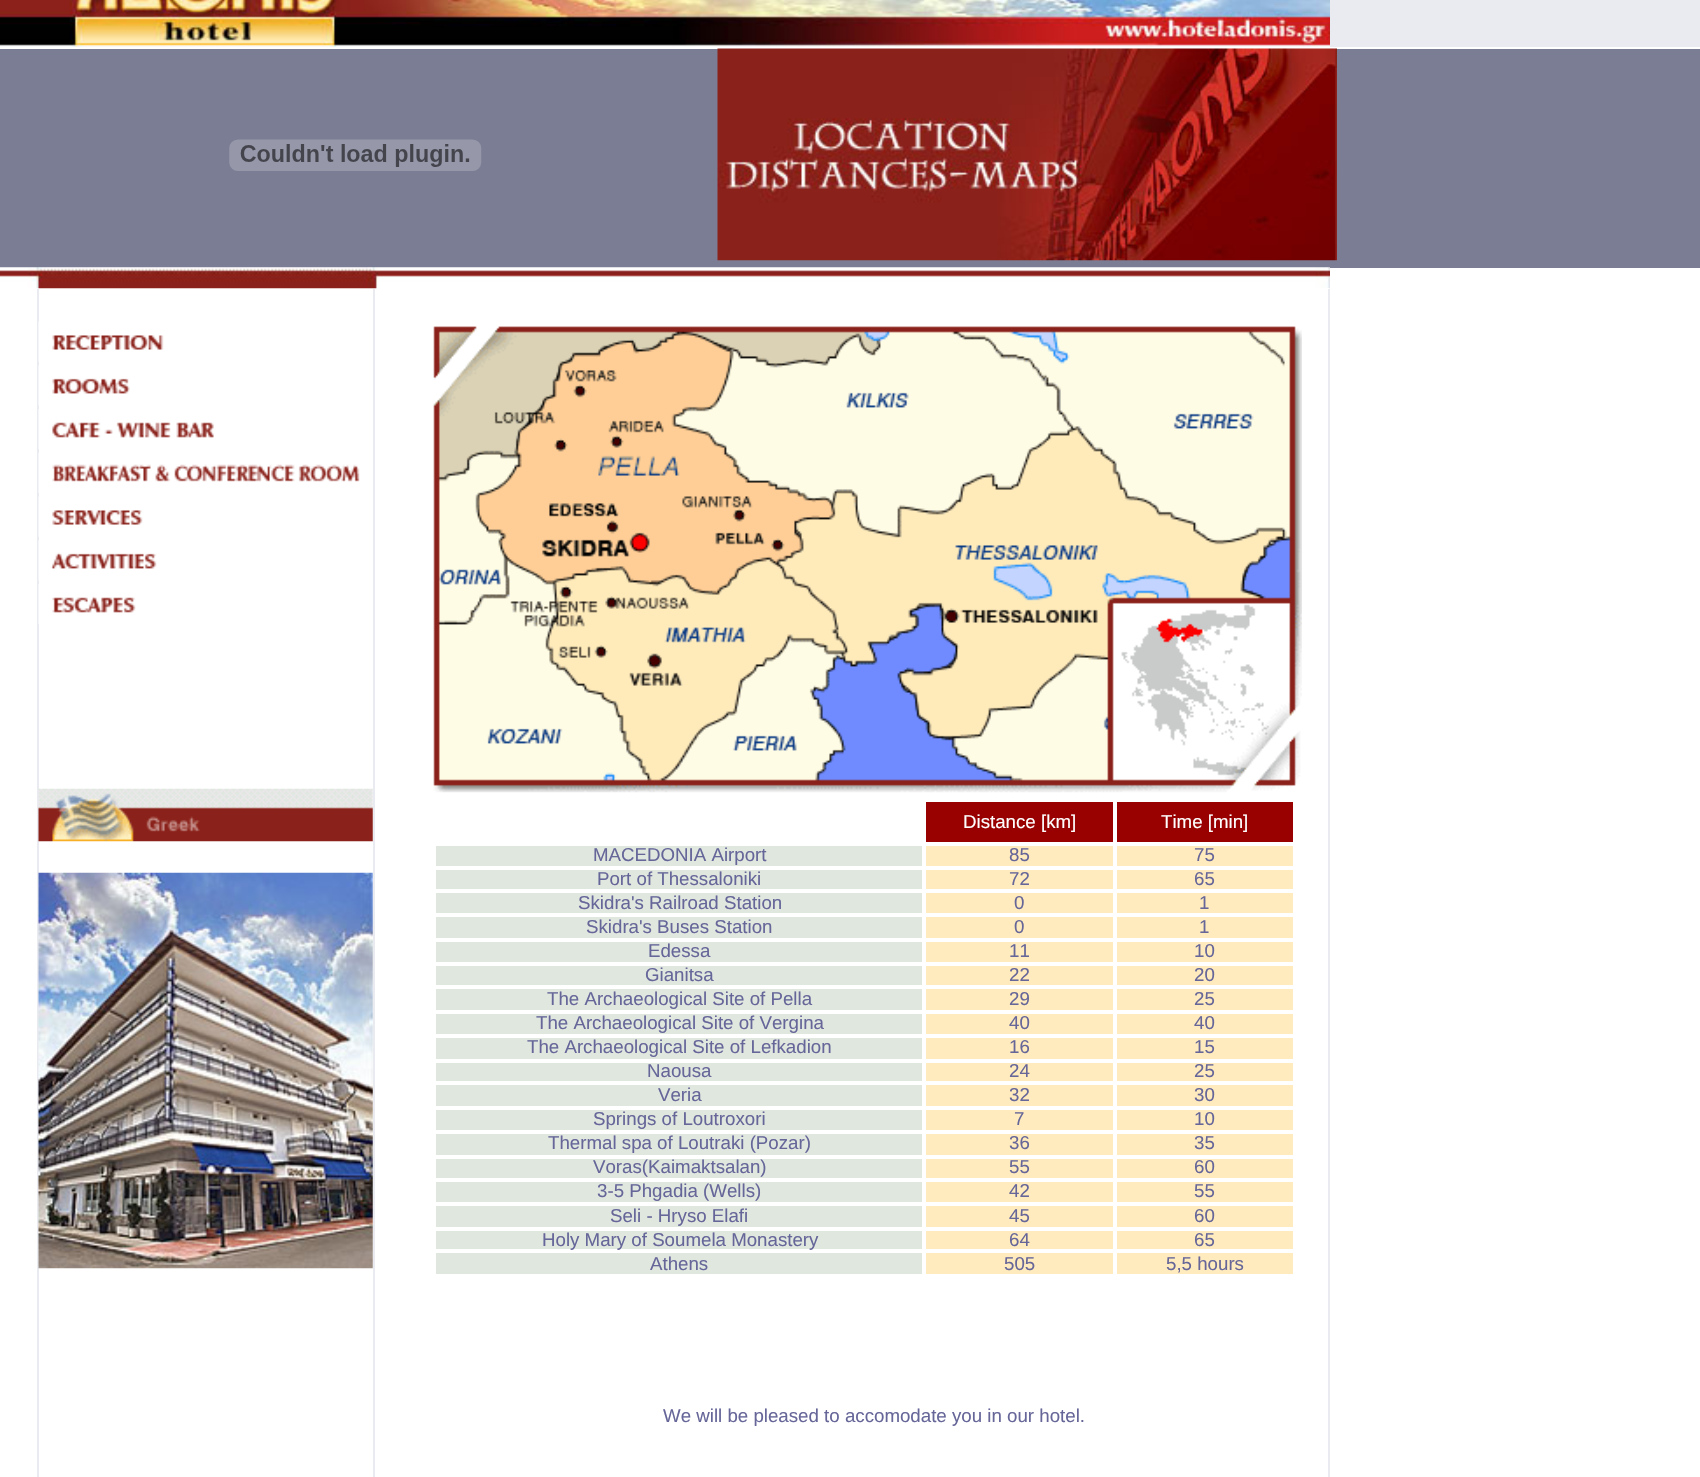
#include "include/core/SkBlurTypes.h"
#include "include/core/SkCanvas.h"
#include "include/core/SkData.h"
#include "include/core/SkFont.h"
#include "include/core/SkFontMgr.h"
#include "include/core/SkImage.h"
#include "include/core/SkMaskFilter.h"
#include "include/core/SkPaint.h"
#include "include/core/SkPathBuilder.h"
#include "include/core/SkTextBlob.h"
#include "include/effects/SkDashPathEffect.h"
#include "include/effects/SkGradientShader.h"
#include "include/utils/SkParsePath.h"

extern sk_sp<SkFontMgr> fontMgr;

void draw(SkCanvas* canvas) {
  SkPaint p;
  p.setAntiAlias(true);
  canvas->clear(SK_ColorWHITE);
  p.setColor(SkColorSetRGB(233, 235, 241));
  canvas->drawRect(SkRect::MakeLTRB(0, 0, 1700, 47), p);
  canvas->drawImageRect(SkImages::DeferredFromEncodedData(SkData::MakeFromFileName("images/1.png")), SkRect::MakeLTRB(0, 0, 1330, 47), SkSamplingOptions());
  p.setColor(SkColorSetRGB(123, 125, 148));
  canvas->drawRect(SkRect::MakeLTRB(0, 49, 1700, 268), p);
  canvas->drawImageRect(SkImages::DeferredFromEncodedData(SkData::MakeFromFileName("images/2.png")), SkRect::MakeLTRB(229, 139, 482, 171), SkSamplingOptions());
  canvas->drawImageRect(SkImages::DeferredFromEncodedData(SkData::MakeFromFileName("images/3.png")), SkRect::MakeLTRB(717, 48, 1337, 261), SkSamplingOptions());
  canvas->drawImageRect(SkImages::DeferredFromEncodedData(SkData::MakeFromFileName("images/4.png")), SkRect::MakeLTRB(0, 267, 1330, 289), SkSamplingOptions());
  p.setColor(SkColorSetRGB(233, 235, 241));
  canvas->drawRect(SkRect::MakeLTRB(37, 289, 39, 1477), p);
  canvas->drawRect(SkRect::MakeLTRB(373, 289, 375, 1477), p);
  canvas->drawRect(SkRect::MakeLTRB(1328, 289, 1330, 1477), p);
  canvas->drawImageRect(SkImages::DeferredFromEncodedData(SkData::MakeFromFileName("images/5.png")), SkRect::MakeLTRB(38, 321, 164, 362), SkSamplingOptions());
  canvas->drawImageRect(SkImages::DeferredFromEncodedData(SkData::MakeFromFileName("images/6.png")), SkRect::MakeLTRB(38, 365, 130, 406), SkSamplingOptions());
  canvas->drawImageRect(SkImages::DeferredFromEncodedData(SkData::MakeFromFileName("images/7.png")), SkRect::MakeLTRB(38, 409, 214, 449), SkSamplingOptions());
  canvas->drawImageRect(SkImages::DeferredFromEncodedData(SkData::MakeFromFileName("images/8.png")), SkRect::MakeLTRB(38, 453, 360, 493), SkSamplingOptions());
  canvas->drawImageRect(SkImages::DeferredFromEncodedData(SkData::MakeFromFileName("images/9.png")), SkRect::MakeLTRB(38, 496, 143, 537), SkSamplingOptions());
  canvas->drawImageRect(SkImages::DeferredFromEncodedData(SkData::MakeFromFileName("images/10.png")), SkRect::MakeLTRB(38, 540, 157, 581), SkSamplingOptions());
  canvas->drawImageRect(SkImages::DeferredFromEncodedData(SkData::MakeFromFileName("images/11.png")), SkRect::MakeLTRB(38, 584, 136, 624), SkSamplingOptions());
  canvas->drawImageRect(SkImages::DeferredFromEncodedData(SkData::MakeFromFileName("images/12.png")), SkRect::MakeLTRB(38, 788, 373, 842), SkSamplingOptions());
  canvas->drawImageRect(SkImages::DeferredFromEncodedData(SkData::MakeFromFileName("images/13.png")), SkRect::MakeLTRB(38, 872, 373, 1269), SkSamplingOptions());
  canvas->drawImageRect(SkImages::DeferredFromEncodedData(SkData::MakeFromFileName("images/14.png")), SkRect::MakeLTRB(433, 326, 1302, 793), SkSamplingOptions());
  p.setColor(SkColorSetRGB(153, 0, 0));
  canvas->drawRect(SkRect::MakeLTRB(926, 802, 1113, 842), p);
  canvas->drawRect(SkRect::MakeLTRB(1117, 802, 1293, 842), p);
  p.setColor(SkColorSetRGB(224, 231, 223));
  canvas->drawRect(SkRect::MakeLTRB(436, 846, 922, 866), p);
  p.setColor(SkColorSetRGB(255, 235, 189));
  canvas->drawRect(SkRect::MakeLTRB(926, 846, 1113, 866), p);
  canvas->drawRect(SkRect::MakeLTRB(1117, 846, 1293, 866), p);
  p.setColor(SkColorSetRGB(224, 231, 223));
  canvas->drawRect(SkRect::MakeLTRB(436, 870, 922, 889), p);
  p.setColor(SkColorSetRGB(255, 235, 189));
  canvas->drawRect(SkRect::MakeLTRB(926, 870, 1113, 889), p);
  canvas->drawRect(SkRect::MakeLTRB(1117, 870, 1293, 889), p);
  p.setColor(SkColorSetRGB(224, 231, 223));
  canvas->drawRect(SkRect::MakeLTRB(436, 893, 922, 913), p);
  p.setColor(SkColorSetRGB(255, 235, 189));
  canvas->drawRect(SkRect::MakeLTRB(926, 893, 1113, 913), p);
  canvas->drawRect(SkRect::MakeLTRB(1117, 893, 1293, 913), p);
  p.setColor(SkColorSetRGB(224, 231, 223));
  canvas->drawRect(SkRect::MakeLTRB(436, 917, 922, 938), p);
  p.setColor(SkColorSetRGB(255, 235, 189));
  canvas->drawRect(SkRect::MakeLTRB(926, 917, 1113, 938), p);
  canvas->drawRect(SkRect::MakeLTRB(1117, 917, 1293, 938), p);
  p.setColor(SkColorSetRGB(224, 231, 223));
  canvas->drawRect(SkRect::MakeLTRB(436, 942, 922, 962), p);
  p.setColor(SkColorSetRGB(255, 235, 189));
  canvas->drawRect(SkRect::MakeLTRB(926, 942, 1113, 962), p);
  canvas->drawRect(SkRect::MakeLTRB(1117, 942, 1293, 962), p);
  p.setColor(SkColorSetRGB(224, 231, 223));
  canvas->drawRect(SkRect::MakeLTRB(436, 966, 922, 985), p);
  p.setColor(SkColorSetRGB(255, 235, 189));
  canvas->drawRect(SkRect::MakeLTRB(926, 966, 1113, 985), p);
  canvas->drawRect(SkRect::MakeLTRB(1117, 966, 1293, 985), p);
  p.setColor(SkColorSetRGB(224, 231, 223));
  canvas->drawRect(SkRect::MakeLTRB(436, 989, 922, 1010), p);
  p.setColor(SkColorSetRGB(255, 235, 189));
  canvas->drawRect(SkRect::MakeLTRB(926, 989, 1113, 1010), p);
  canvas->drawRect(SkRect::MakeLTRB(1117, 989, 1293, 1010), p);
  p.setColor(SkColorSetRGB(224, 231, 223));
  canvas->drawRect(SkRect::MakeLTRB(436, 1014, 922, 1034), p);
  p.setColor(SkColorSetRGB(255, 235, 189));
  canvas->drawRect(SkRect::MakeLTRB(926, 1014, 1113, 1034), p);
  canvas->drawRect(SkRect::MakeLTRB(1117, 1014, 1293, 1034), p);
  p.setColor(SkColorSetRGB(224, 231, 223));
  canvas->drawRect(SkRect::MakeLTRB(436, 1038, 922, 1059), p);
  p.setColor(SkColorSetRGB(255, 235, 189));
  canvas->drawRect(SkRect::MakeLTRB(926, 1038, 1113, 1059), p);
  canvas->drawRect(SkRect::MakeLTRB(1117, 1038, 1293, 1059), p);
  p.setColor(SkColorSetRGB(224, 231, 223));
  canvas->drawRect(SkRect::MakeLTRB(436, 1063, 922, 1081), p);
  p.setColor(SkColorSetRGB(255, 235, 189));
  canvas->drawRect(SkRect::MakeLTRB(926, 1063, 1113, 1081), p);
  canvas->drawRect(SkRect::MakeLTRB(1117, 1063, 1293, 1081), p);
  p.setColor(SkColorSetRGB(224, 231, 223));
  canvas->drawRect(SkRect::MakeLTRB(436, 1085, 922, 1106), p);
  p.setColor(SkColorSetRGB(255, 235, 189));
  canvas->drawRect(SkRect::MakeLTRB(926, 1085, 1113, 1106), p);
  canvas->drawRect(SkRect::MakeLTRB(1117, 1085, 1293, 1106), p);
  p.setColor(SkColorSetRGB(224, 231, 223));
  canvas->drawRect(SkRect::MakeLTRB(436, 1110, 922, 1130), p);
  p.setColor(SkColorSetRGB(255, 235, 189));
  canvas->drawRect(SkRect::MakeLTRB(926, 1110, 1113, 1130), p);
  canvas->drawRect(SkRect::MakeLTRB(1117, 1110, 1293, 1130), p);
  p.setColor(SkColorSetRGB(224, 231, 223));
  canvas->drawRect(SkRect::MakeLTRB(436, 1134, 922, 1155), p);
  p.setColor(SkColorSetRGB(255, 235, 189));
  canvas->drawRect(SkRect::MakeLTRB(926, 1134, 1113, 1155), p);
  canvas->drawRect(SkRect::MakeLTRB(1117, 1134, 1293, 1155), p);
  p.setColor(SkColorSetRGB(224, 231, 223));
  canvas->drawRect(SkRect::MakeLTRB(436, 1159, 922, 1178), p);
  p.setColor(SkColorSetRGB(255, 235, 189));
  canvas->drawRect(SkRect::MakeLTRB(926, 1159, 1113, 1178), p);
  canvas->drawRect(SkRect::MakeLTRB(1117, 1159, 1293, 1178), p);
  p.setColor(SkColorSetRGB(224, 231, 223));
  canvas->drawRect(SkRect::MakeLTRB(436, 1182, 922, 1202), p);
  p.setColor(SkColorSetRGB(255, 235, 189));
  canvas->drawRect(SkRect::MakeLTRB(926, 1182, 1113, 1202), p);
  canvas->drawRect(SkRect::MakeLTRB(1117, 1182, 1293, 1202), p);
  p.setColor(SkColorSetRGB(224, 231, 223));
  canvas->drawRect(SkRect::MakeLTRB(436, 1206, 922, 1227), p);
  p.setColor(SkColorSetRGB(255, 235, 189));
  canvas->drawRect(SkRect::MakeLTRB(926, 1206, 1113, 1227), p);
  canvas->drawRect(SkRect::MakeLTRB(1117, 1206, 1293, 1227), p);
  p.setColor(SkColorSetRGB(224, 231, 223));
  canvas->drawRect(SkRect::MakeLTRB(436, 1231, 922, 1249), p);
  p.setColor(SkColorSetRGB(255, 235, 189));
  canvas->drawRect(SkRect::MakeLTRB(926, 1231, 1113, 1249), p);
  canvas->drawRect(SkRect::MakeLTRB(1117, 1231, 1293, 1249), p);
  p.setColor(SkColorSetRGB(224, 231, 223));
  canvas->drawRect(SkRect::MakeLTRB(436, 1253, 922, 1274), p);
  p.setColor(SkColorSetRGB(255, 235, 189));
  canvas->drawRect(SkRect::MakeLTRB(926, 1253, 1113, 1274), p);
  canvas->drawRect(SkRect::MakeLTRB(1117, 1253, 1293, 1274), p);
  SkFont font1(fontMgr->matchFamilyStyle("Liberation Sans", SkFontStyle::Normal()), 18.7f);
  font1.setSubpixel(true);
  p.setColor(SK_ColorWHITE);
  canvas->drawString("Distance [km]", 963, 828, font1, p);
  canvas->drawString("Time [min]", 1161, 828, font1, p);
  p.setColor(SkColorSetRGB(102, 102, 153));
  canvas->drawString("MACEDONIA Airport", 593, 861, font1, p);
  canvas->drawString("85", 1009, 861, font1, p);
  canvas->drawString("75", 1194, 861, font1, p);
  canvas->drawString("Port of Thessaloniki", 597, 885, font1, p);
  canvas->drawString("72", 1009, 885, font1, p);
  canvas->drawString("65", 1194, 885, font1, p);
  canvas->drawString("Skidra's Railroad Station", 578, 909, font1, p);
  canvas->drawString("0", 1014, 909, font1, p);
  canvas->drawString("1", 1199, 909, font1, p);
  canvas->drawString("Skidra's Buses Station", 586, 933, font1, p);
  canvas->drawString("0", 1014, 933, font1, p);
  canvas->drawString("1", 1199, 933, font1, p);
  canvas->drawString("Edessa", 648, 957, font1, p);
  canvas->drawString("11", 1009, 957, font1, p);
  canvas->drawString("10", 1194, 957, font1, p);
  canvas->drawString("Gianitsa", 645, 981, font1, p);
  canvas->drawString("22", 1009, 981, font1, p);
  canvas->drawString("20", 1194, 981, font1, p);
  canvas->drawString("The Archaeological Site of Pella", 547, 1005, font1, p);
  canvas->drawString("29", 1009, 1005, font1, p);
  canvas->drawString("25", 1194, 1005, font1, p);
  canvas->drawString("The Archaeological Site of Vergina", 536, 1029, font1, p);
  canvas->drawString("40", 1009, 1029, font1, p);
  canvas->drawString("40", 1194, 1029, font1, p);
  canvas->drawString("The Archaeological Site of Lefkadion", 527, 1053, font1, p);
  canvas->drawString("16", 1009, 1053, font1, p);
  canvas->drawString("15", 1194, 1053, font1, p);
  canvas->drawString("Naousa", 647, 1077, font1, p);
  canvas->drawString("24", 1009, 1077, font1, p);
  canvas->drawString("25", 1194, 1077, font1, p);
  canvas->drawString("Veria", 658, 1101, font1, p);
  canvas->drawString("32", 1009, 1101, font1, p);
  canvas->drawString("30", 1194, 1101, font1, p);
  canvas->drawString("Springs of Loutroxori", 593, 1125, font1, p);
  canvas->drawString("7", 1014, 1125, font1, p);
  canvas->drawString("10", 1194, 1125, font1, p);
  canvas->drawString("Thermal spa of Loutraki (Pozar)", 548, 1149, font1, p);
  canvas->drawString("36", 1009, 1149, font1, p);
  canvas->drawString("35", 1194, 1149, font1, p);
  canvas->drawString("Voras(Kaimaktsalan)", 593, 1173, font1, p);
  canvas->drawString("55", 1009, 1173, font1, p);
  canvas->drawString("60", 1194, 1173, font1, p);
  canvas->drawString("3-5 Phgadia (Wells)", 597, 1197, font1, p);
  canvas->drawString("42", 1009, 1197, font1, p);
  canvas->drawString("55", 1194, 1197, font1, p);
  canvas->drawString("Seli - Hryso Elafi", 610, 1222, font1, p);
  canvas->drawString("45", 1009, 1222, font1, p);
  canvas->drawString("60", 1194, 1222, font1, p);
  canvas->drawString("Holy Mary of Soumela Monastery", 542, 1246, font1, p);
  canvas->drawString("64", 1009, 1246, font1, p);
  canvas->drawString("65", 1194, 1246, font1, p);
  canvas->drawString("Athens", 650, 1270, font1, p);
  canvas->drawString("505", 1004, 1270, font1, p);
  canvas->drawString("5,5 hours", 1166, 1270, font1, p);
  canvas->drawString("We will be pleased to accomodate you in our hotel.", 663, 1422, font1, p);
}
